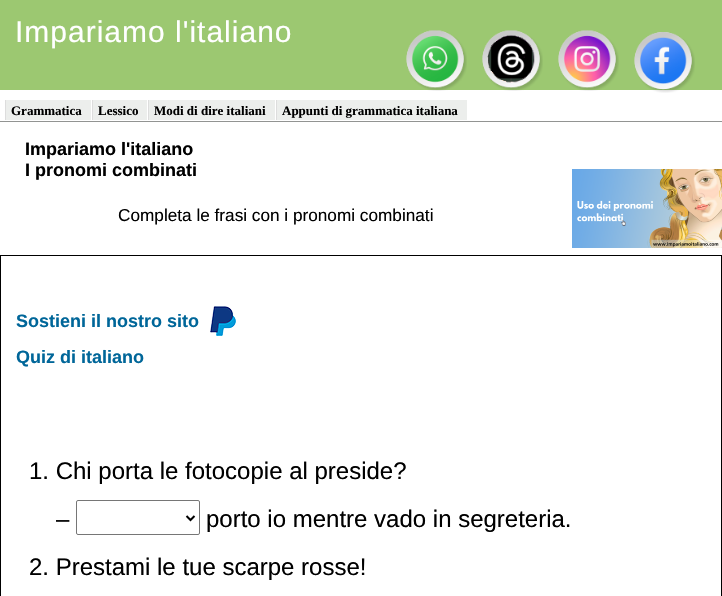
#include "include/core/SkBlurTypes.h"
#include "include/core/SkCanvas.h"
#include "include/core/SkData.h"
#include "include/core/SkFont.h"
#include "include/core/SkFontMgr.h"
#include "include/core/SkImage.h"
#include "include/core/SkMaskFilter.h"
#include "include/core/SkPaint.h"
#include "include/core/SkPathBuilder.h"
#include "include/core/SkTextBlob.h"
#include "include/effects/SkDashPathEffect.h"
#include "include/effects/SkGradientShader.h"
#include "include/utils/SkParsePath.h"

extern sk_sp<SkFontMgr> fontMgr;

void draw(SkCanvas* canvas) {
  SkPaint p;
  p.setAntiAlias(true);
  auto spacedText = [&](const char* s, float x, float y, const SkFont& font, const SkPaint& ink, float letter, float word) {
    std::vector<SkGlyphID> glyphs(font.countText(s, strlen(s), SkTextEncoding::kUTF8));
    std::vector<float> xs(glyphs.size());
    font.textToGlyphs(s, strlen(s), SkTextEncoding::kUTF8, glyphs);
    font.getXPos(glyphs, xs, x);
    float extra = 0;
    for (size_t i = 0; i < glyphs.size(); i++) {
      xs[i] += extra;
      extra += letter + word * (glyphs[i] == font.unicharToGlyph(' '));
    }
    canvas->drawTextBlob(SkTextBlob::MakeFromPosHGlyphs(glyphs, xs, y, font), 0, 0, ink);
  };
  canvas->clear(SK_ColorWHITE);
  p.setColor(SkColorSetRGB(156, 200, 113));
  canvas->drawRect(SkRect::MakeLTRB(0, 0, 722, 90), p);
  p.setColor(SkColorSetRGB(146, 148, 146));
  canvas->drawRect(SkRect::MakeLTRB(0, 121, 722, 122), p);
  p.setColor(SkColorSetRGB(236, 238, 236));
  canvas->drawRect(SkRect::MakeLTRB(6, 100, 91, 120), p);
  p.setColor(SkColorSetRGB(221, 221, 221));
  canvas->drawRect(SkRect::MakeLTRB(5, 100, 6, 120), p);
  p.setColor(SkColorSetRGB(236, 238, 236));
  canvas->drawRect(SkRect::MakeLTRB(93, 100, 147, 120), p);
  p.setColor(SkColorSetRGB(221, 221, 221));
  canvas->drawRect(SkRect::MakeLTRB(92, 100, 93, 120), p);
  p.setColor(SkColorSetRGB(236, 238, 236));
  canvas->drawRect(SkRect::MakeLTRB(149, 100, 275, 120), p);
  p.setColor(SkColorSetRGB(221, 221, 221));
  canvas->drawRect(SkRect::MakeLTRB(148, 100, 149, 120), p);
  p.setColor(SkColorSetRGB(236, 238, 236));
  canvas->drawRect(SkRect::MakeLTRB(277, 100, 467, 120), p);
  p.setColor(SkColorSetRGB(221, 221, 221));
  canvas->drawRect(SkRect::MakeLTRB(276, 100, 277, 120), p);
  canvas->drawImageRect(SkImages::DeferredFromEncodedData(SkData::MakeFromFileName("images/1.png")), SkRect::MakeLTRB(572, 169, 722, 248), SkSamplingOptions());
  p.setStyle(SkPaint::kStroke_Style);
  p.setStrokeWidth(1);
  p.setColor(SK_ColorBLACK);
  canvas->drawRect(SkRect::MakeLTRB(0.5f, 255.5f, 721.5f, 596.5f), p);
  canvas->drawImageRect(SkImages::DeferredFromEncodedData(SkData::MakeFromFileName("images/2.png")), SkRect::MakeLTRB(210, 306, 236, 336), SkSamplingOptions());
  p.setColor(SkColorSetRGB(118, 118, 118));
  canvas->drawRoundRect(SkRect::MakeLTRB(76.5f, 500.5f, 199.5f, 534.5f), 1.5f, 1.5f, p);
  p.setStrokeWidth(2);
  p.setColor(SK_ColorBLACK);
  canvas->drawPath(SkPathBuilder().moveTo(186.5f, 516).lineTo(190.5f, 520).lineTo(194.5f, 516).detach(), p);
  canvas->drawImageRect(SkImages::DeferredFromEncodedData(SkData::MakeFromFileName("images/3.png")), SkRect::MakeLTRB(406, 30, 467, 91), SkSamplingOptions());
  canvas->drawImageRect(SkImages::DeferredFromEncodedData(SkData::MakeFromFileName("images/4.png")), SkRect::MakeLTRB(482, 30, 543, 91), SkSamplingOptions());
  canvas->drawImageRect(SkImages::DeferredFromEncodedData(SkData::MakeFromFileName("images/5.png")), SkRect::MakeLTRB(558, 30, 619, 91), SkSamplingOptions());
  canvas->drawImageRect(SkImages::DeferredFromEncodedData(SkData::MakeFromFileName("images/6.png")), SkRect::MakeLTRB(634, 32, 695, 93), SkSamplingOptions());
  SkFont font1(fontMgr->matchFamilyStyle("Liberation Sans", SkFontStyle::Normal()), 30);
  font1.setSubpixel(true);
  p.setStyle(SkPaint::kFill_Style);
  p.setColor(SK_ColorWHITE);
  spacedText("Impariamo l'italiano", 15, 42, font1, p, 1, 0);
  SkFont font2(fontMgr->matchFamilyStyle("Liberation Serif", SkFontStyle::Bold()), 13);
  font2.setSubpixel(true);
  p.setColor(SK_ColorBLACK);
  canvas->drawString("Grammatica", 11, 115, font2, p);
  canvas->drawString("Lessico", 98, 115, font2, p);
  canvas->drawString("Modi di dire italiani", 154, 115, font2, p);
  canvas->drawString("Appunti di grammatica italiana", 282, 115, font2, p);
  SkFont font3(fontMgr->matchFamilyStyle("Liberation Sans", SkFontStyle::Bold()), 18);
  font3.setSubpixel(true);
  canvas->drawString("Impariamo l'italiano", 25, 155, font3, p);
  canvas->drawString("I pronomi combinati", 25, 176, font3, p);
  SkFont font4(fontMgr->matchFamilyStyle("Liberation Sans", SkFontStyle::Normal()), 17.2f);
  font4.setSubpixel(true);
  canvas->drawString("Completa le frasi con i pronomi combinati", 118, 221, font4, p);
  p.setColor(SkColorSetRGB(0, 102, 153));
  canvas->drawString("Sostieni il nostro sito", 16, 327, font3, p);
  canvas->drawString("Quiz di italiano", 16, 363, font3, p);
  SkFont font5(fontMgr->matchFamilyStyle("Liberation Sans", SkFontStyle::Normal()), 24);
  font5.setSubpixel(true);
  p.setColor(SK_ColorBLACK);
  canvas->drawString("1. Chi porta le fotocopie al preside?", 29, 479, font5, p);
  canvas->drawString("–", 56, 527, font5, p);
  canvas->drawString("porto io mentre vado in segreteria.", 206, 527, font5, p);
  canvas->drawString("2. Prestami le tue scarpe rosse!", 29, 575, font5, p);
}
